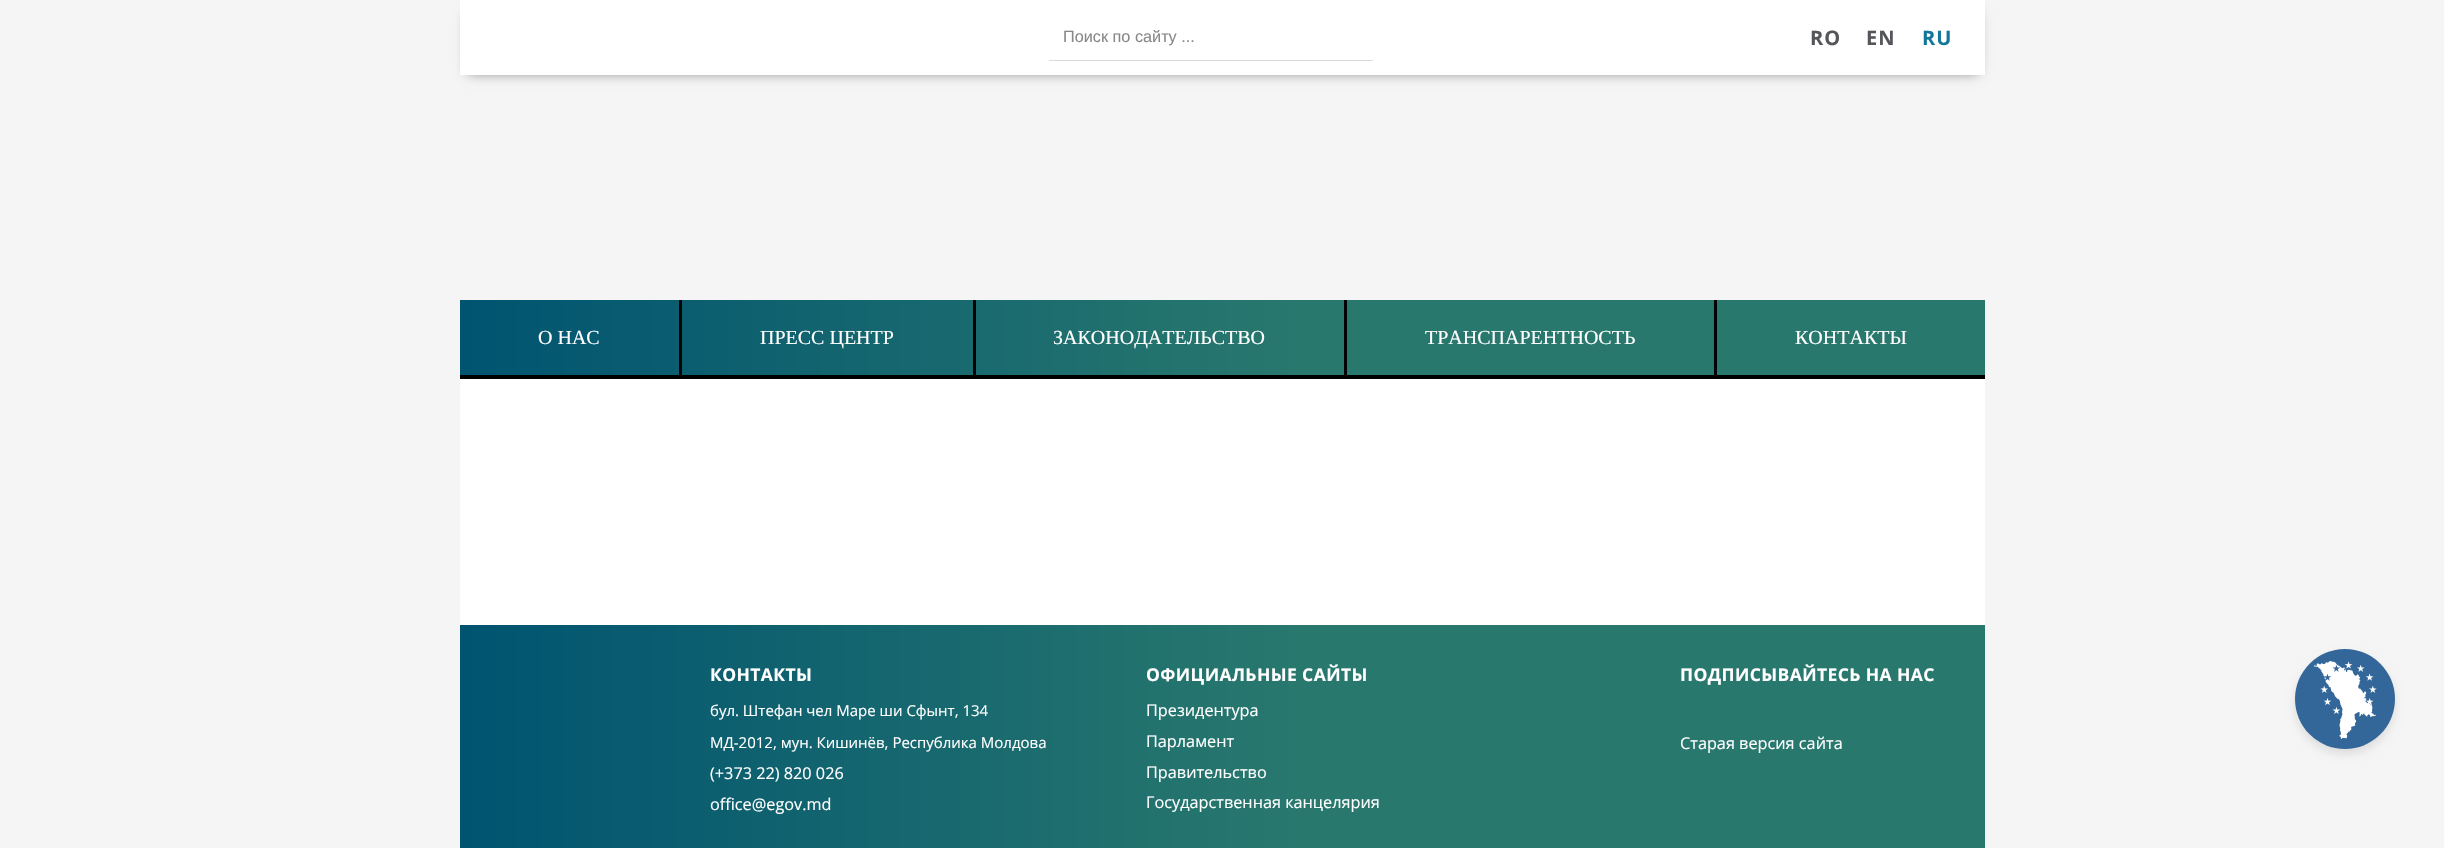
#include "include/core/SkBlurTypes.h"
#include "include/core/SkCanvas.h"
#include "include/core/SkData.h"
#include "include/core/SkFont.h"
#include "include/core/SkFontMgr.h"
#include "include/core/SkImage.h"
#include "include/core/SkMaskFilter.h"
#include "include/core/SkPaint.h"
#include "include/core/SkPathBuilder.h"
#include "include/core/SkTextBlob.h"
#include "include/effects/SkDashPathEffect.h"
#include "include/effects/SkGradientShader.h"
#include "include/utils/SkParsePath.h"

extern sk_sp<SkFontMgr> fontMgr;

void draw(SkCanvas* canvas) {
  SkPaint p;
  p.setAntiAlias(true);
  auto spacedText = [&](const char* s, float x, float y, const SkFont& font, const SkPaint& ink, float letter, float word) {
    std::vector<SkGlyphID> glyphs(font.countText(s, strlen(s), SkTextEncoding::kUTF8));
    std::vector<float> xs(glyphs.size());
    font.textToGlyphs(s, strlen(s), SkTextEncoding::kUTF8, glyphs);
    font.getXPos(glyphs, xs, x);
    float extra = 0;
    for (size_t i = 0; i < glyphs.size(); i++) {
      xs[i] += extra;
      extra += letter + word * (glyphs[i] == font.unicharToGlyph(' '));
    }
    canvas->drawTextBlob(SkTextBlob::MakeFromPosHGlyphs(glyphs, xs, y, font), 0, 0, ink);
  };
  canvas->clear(SkColorSetRGB(245, 245, 245));
  p.setColor(SkColorSetRGB(128, 128, 128));
  p.setMaskFilter(SkMaskFilter::MakeBlur(kNormal_SkBlurStyle, 6));
  canvas->drawRect(SkRect::MakeLTRB(468, 13, 1978, 73), p);
  p.setMaskFilter(nullptr);
  p.setColor(SK_ColorWHITE);
  canvas->drawRect(SkRect::MakeLTRB(460, 0, 1985, 75), p);
  p.setColor(SkColorSetRGB(219, 219, 219));
  canvas->drawRect(SkRect::MakeLTRB(1049, 60, 1373, 61), p);
  p.setColor(SK_ColorWHITE);
  canvas->drawRect(SkRect::MakeLTRB(460, 379, 1985, 625), p);
  {
    const SkColor colors[] = {SkColorSetRGB(0, 84, 112), SkColorSetRGB(41, 120, 110)};
    const float stops[] = {0, 0.55f};
    const SkPoint ends[] = {{460, 339}, {1985, 339}};
    p.setShader(SkGradientShader::MakeLinear(ends, colors, stops, 2, SkTileMode::kClamp));
    p.setAlpha(255);
  }
  canvas->drawRect(SkRect::MakeLTRB(460, 300, 1985, 375), p);
  p.setShader(nullptr);
  p.setColor(SK_ColorBLACK);
  canvas->drawRect(SkRect::MakeLTRB(460, 375, 1985, 379), p);
  p.setColor(SkColorSetRGB(0, 2, 5));
  canvas->drawRect(SkRect::MakeLTRB(679, 300, 682, 375), p);
  canvas->drawRect(SkRect::MakeLTRB(973, 300, 976, 375), p);
  canvas->drawRect(SkRect::MakeLTRB(1344, 300, 1347, 375), p);
  canvas->drawRect(SkRect::MakeLTRB(1714, 300, 1717, 375), p);
  {
    const SkColor colors[] = {SkColorSetRGB(0, 84, 112), SkColorSetRGB(41, 120, 110)};
    const float stops[] = {0, 0.55f};
    const SkPoint ends[] = {{460, 806}, {1985, 806}};
    p.setShader(SkGradientShader::MakeLinear(ends, colors, stops, 2, SkTileMode::kClamp));
    p.setAlpha(255);
  }
  canvas->drawRect(SkRect::MakeLTRB(460, 625, 1985, 848), p);
  p.setShader(nullptr);
  p.setColor(SkColorSetARGB(26, 0, 0, 0));
  p.setMaskFilter(SkMaskFilter::MakeBlur(kNormal_SkBlurStyle, 4));
  canvas->drawRoundRect(SkRect::MakeLTRB(2295, 654, 2395, 754), 50, 50, p);
  p.setMaskFilter(nullptr);
  p.setColor(SkColorSetRGB(51, 102, 153));
  canvas->drawCircle(2345, 699, 50, p);
  canvas->drawImageRect(SkImages::DeferredFromEncodedData(SkData::MakeFromFileName("images/1.png")), SkRect::MakeLTRB(2313, 660, 2377, 739), SkSamplingOptions());
  SkFont font1(fontMgr->matchFamilyStyle("Liberation Sans", SkFontStyle::Normal()), 16.25f);
  font1.setSubpixel(true);
  p.setColor(SkColorSetRGB(136, 136, 136));
  canvas->drawString("Поиск по сайту ...", 1063, 42, font1, p);
  SkFont font2(fontMgr->matchFamilyStyle("Open Sans", SkFontStyle::Bold()), 20);
  font2.setSubpixel(true);
  p.setColor(SkColorSetRGB(84, 86, 90));
  spacedText("RO", 1810, 45, font2, p, 1, 0);
  spacedText("EN", 1866, 45, font2, p, 1, 0);
  p.setColor(SkColorSetRGB(19, 119, 155));
  spacedText("RU", 1922, 45, font2, p, 1, 0);
  SkFont font3(fontMgr->matchFamilyStyle("Liberation Serif", SkFontStyle::Normal()), 20);
  font3.setSubpixel(true);
  p.setColor(SK_ColorWHITE);
  canvas->drawString("О НАС", 538, 344, font3, p);
  canvas->drawString("ПРЕСС ЦЕНТР", 760, 344, font3, p);
  canvas->drawString("ЗАКОНОДАТЕЛЬСТВО", 1053, 344, font3, p);
  canvas->drawString("ТРАНСПАРЕНТНОСТЬ", 1425, 344, font3, p);
  canvas->drawString("КОНТАКТЫ", 1795, 344, font3, p);
  SkFont font4(fontMgr->matchFamilyStyle("Open Sans", SkFontStyle::Bold()), 17.5f);
  font4.setSubpixel(true);
  spacedText("КОНТАКТЫ", 710, 681, font4, p, 0.4f, 0);
  SkFont font5(fontMgr->matchFamilyStyle("Open Sans", SkFontStyle::Normal()), 15);
  font5.setSubpixel(true);
  canvas->drawString("бул. Штефан чел Маре ши Сфынт, 134", 710, 716, font5, p);
  canvas->drawString("МД-2012, мун. Кишинёв, Республика Молдова", 710, 748, font5, p);
  SkFont font6(fontMgr->matchFamilyStyle("Open Sans", SkFontStyle::Normal()), 16.25f);
  font6.setSubpixel(true);
  canvas->drawString("(+373 22) 820 026", 710, 779, font6, p);
  canvas->drawString("office@egov.md", 710, 810, font6, p);
  spacedText("ОФИЦИАЛЬНЫЕ САЙТЫ", 1146, 681, font4, p, 0.4f, 0);
  canvas->drawString("Президентура", 1146, 716, font6, p);
  canvas->drawString("Парламент", 1146, 747, font6, p);
  canvas->drawString("Правительство", 1146, 778, font6, p);
  canvas->drawString("Государственная канцелярия", 1146, 808, font6, p);
  spacedText("ПОДПИСЫВАЙТЕСЬ НА НАС", 1680, 681, font4, p, 0.4f, 0);
  canvas->drawString("Старая версия сайта", 1680, 749, font6, p);
}
